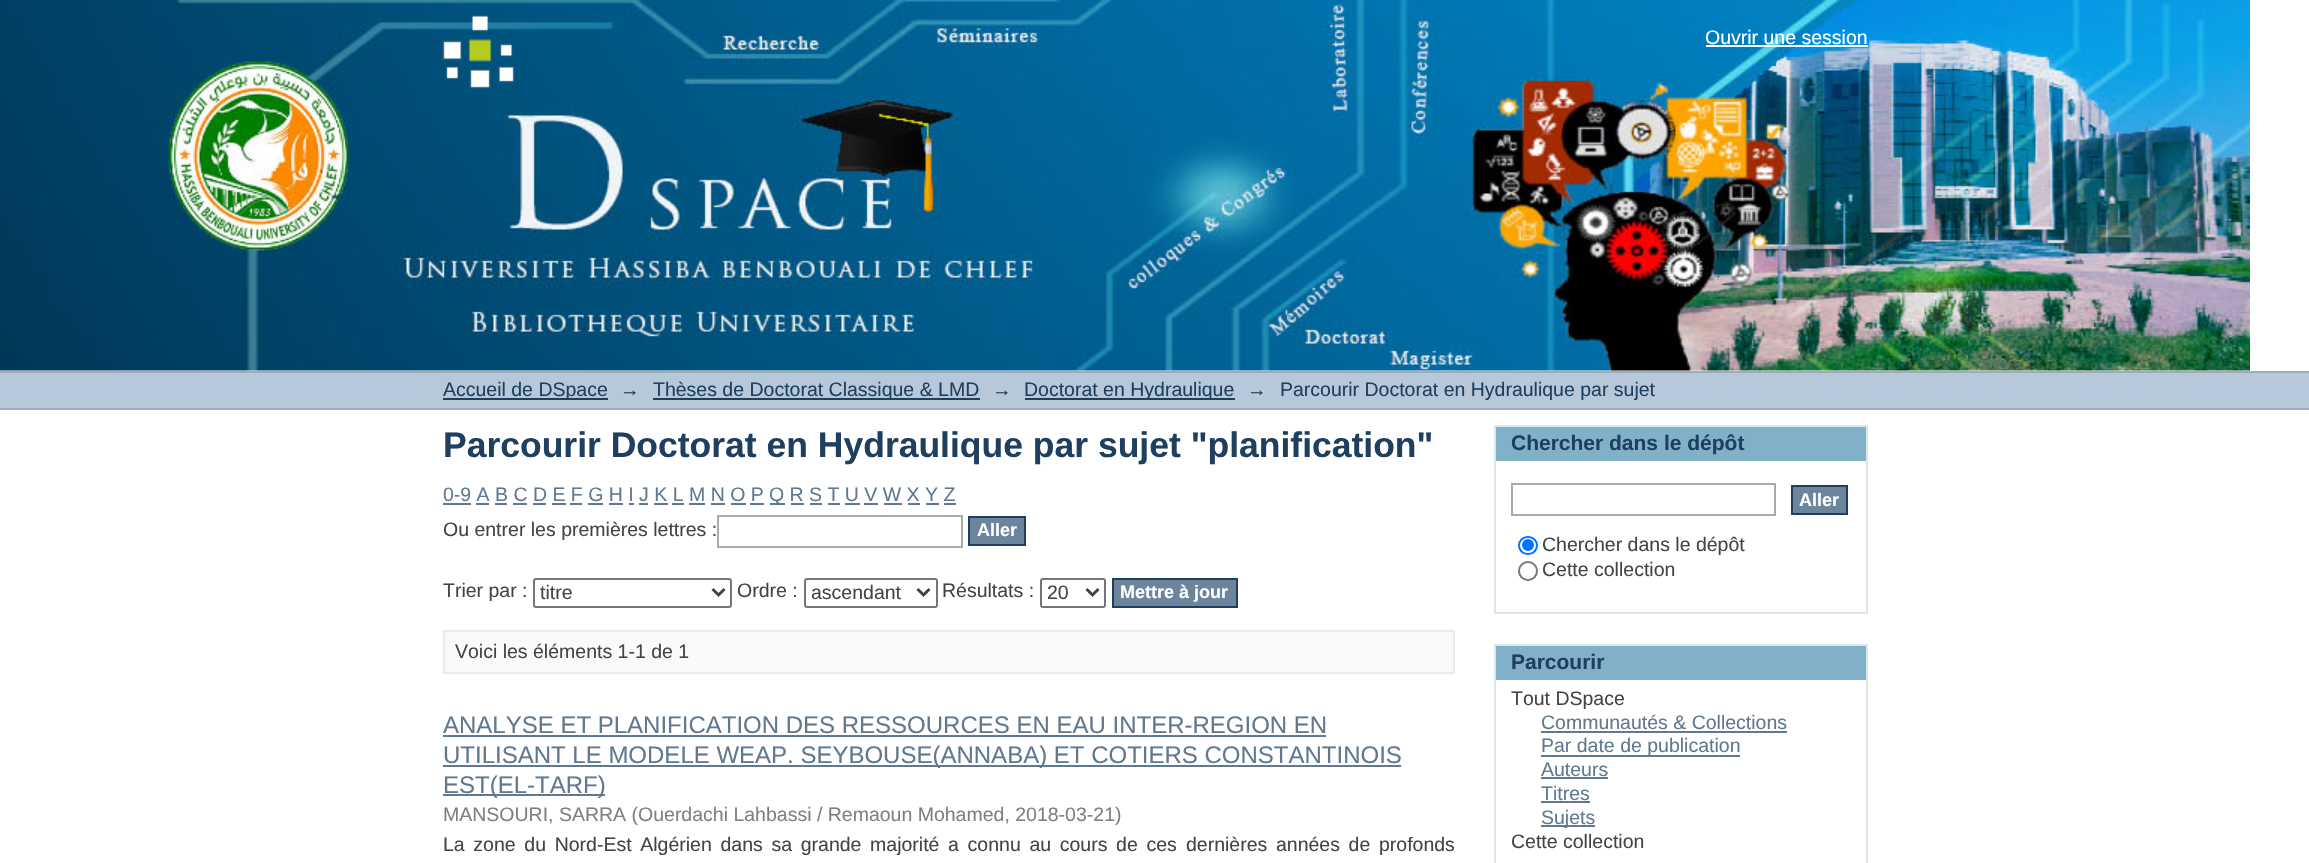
#include "include/core/SkBlurTypes.h"
#include "include/core/SkCanvas.h"
#include "include/core/SkData.h"
#include "include/core/SkFont.h"
#include "include/core/SkFontMgr.h"
#include "include/core/SkImage.h"
#include "include/core/SkMaskFilter.h"
#include "include/core/SkPaint.h"
#include "include/core/SkPathBuilder.h"
#include "include/core/SkTextBlob.h"
#include "include/effects/SkDashPathEffect.h"
#include "include/effects/SkGradientShader.h"
#include "include/utils/SkParsePath.h"

extern sk_sp<SkFontMgr> fontMgr;

void draw(SkCanvas* canvas) {
  SkPaint p;
  p.setAntiAlias(true);
  auto spacedText = [&](const char* s, float x, float y, const SkFont& font, const SkPaint& ink, float letter, float word) {
    std::vector<SkGlyphID> glyphs(font.countText(s, strlen(s), SkTextEncoding::kUTF8));
    std::vector<float> xs(glyphs.size());
    font.textToGlyphs(s, strlen(s), SkTextEncoding::kUTF8, glyphs);
    font.getXPos(glyphs, xs, x);
    float extra = 0;
    for (size_t i = 0; i < glyphs.size(); i++) {
      xs[i] += extra;
      extra += letter + word * (glyphs[i] == font.unicharToGlyph(' '));
    }
    canvas->drawTextBlob(SkTextBlob::MakeFromPosHGlyphs(glyphs, xs, y, font), 0, 0, ink);
  };
  canvas->clear(SK_ColorWHITE);
  canvas->drawImageRect(SkImages::DeferredFromEncodedData(SkData::MakeFromFileName("images/1.png")), SkRect::MakeLTRB(0, 0, 2250, 371), SkSamplingOptions());
  canvas->drawImageRect(SkImages::DeferredFromEncodedData(SkData::MakeFromFileName("images/2.png")), SkRect::MakeLTRB(442, 15, 515, 89), SkSamplingOptions());
  p.setColor(SK_ColorWHITE);
  canvas->drawRect(SkRect::MakeLTRB(1706, 45, 1868, 47), p);
  p.setColor(SkColorSetRGB(182, 200, 217));
  canvas->drawRect(SkRect::MakeLTRB(0, 373, 2309, 408), p);
  p.setColor(SkColorSetRGB(156, 172, 186));
  canvas->drawRect(SkRect::MakeLTRB(0, 371, 2309, 373), p);
  canvas->drawRect(SkRect::MakeLTRB(0, 408, 2309, 410), p);
  p.setColor(SkColorSetRGB(31, 63, 94));
  canvas->drawRect(SkRect::MakeLTRB(443, 398, 608, 400), p);
  canvas->drawRect(SkRect::MakeLTRB(653, 398, 980, 400), p);
  canvas->drawRect(SkRect::MakeLTRB(1025, 398, 1235, 400), p);
  p.setColor(SkColorSetRGB(96, 120, 144));
  canvas->drawRect(SkRect::MakeLTRB(443, 503, 471, 505), p);
  canvas->drawRect(SkRect::MakeLTRB(770, 503, 785, 505), p);
  canvas->drawRect(SkRect::MakeLTRB(476, 503, 489, 505), p);
  canvas->drawRect(SkRect::MakeLTRB(495, 503, 507, 505), p);
  canvas->drawRect(SkRect::MakeLTRB(513, 503, 527, 505), p);
  canvas->drawRect(SkRect::MakeLTRB(533, 503, 546, 505), p);
  canvas->drawRect(SkRect::MakeLTRB(552, 503, 566, 505), p);
  canvas->drawRect(SkRect::MakeLTRB(570, 503, 582, 505), p);
  canvas->drawRect(SkRect::MakeLTRB(588, 503, 603, 505), p);
  canvas->drawRect(SkRect::MakeLTRB(609, 503, 623, 505), p);
  canvas->drawRect(SkRect::MakeLTRB(629, 503, 634, 505), p);
  canvas->drawRect(SkRect::MakeLTRB(639, 503, 648, 505), p);
  canvas->drawRect(SkRect::MakeLTRB(654, 503, 668, 505), p);
  canvas->drawRect(SkRect::MakeLTRB(672, 503, 684, 505), p);
  canvas->drawRect(SkRect::MakeLTRB(689, 503, 705, 505), p);
  canvas->drawRect(SkRect::MakeLTRB(711, 503, 725, 505), p);
  canvas->drawRect(SkRect::MakeLTRB(731, 503, 746, 505), p);
  canvas->drawRect(SkRect::MakeLTRB(750, 503, 764, 505), p);
  canvas->drawRect(SkRect::MakeLTRB(791, 503, 804, 505), p);
  canvas->drawRect(SkRect::MakeLTRB(810, 503, 822, 505), p);
  canvas->drawRect(SkRect::MakeLTRB(828, 503, 840, 505), p);
  canvas->drawRect(SkRect::MakeLTRB(845, 503, 860, 505), p);
  canvas->drawRect(SkRect::MakeLTRB(864, 503, 878, 505), p);
  canvas->drawRect(SkRect::MakeLTRB(884, 503, 902, 505), p);
  canvas->drawRect(SkRect::MakeLTRB(908, 503, 920, 505), p);
  canvas->drawRect(SkRect::MakeLTRB(926, 503, 939, 505), p);
  canvas->drawRect(SkRect::MakeLTRB(944, 503, 956, 505), p);
  p.setStyle(SkPaint::kStroke_Style);
  p.setStrokeWidth(2);
  p.setColor(SkColorSetRGB(170, 170, 170));
  canvas->drawRect(SkRect::MakeLTRB(718, 516, 962, 547), p);
  p.setStyle(SkPaint::kFill_Style);
  p.setColor(SkColorSetRGB(109, 133, 156));
  canvas->drawRect(SkRect::MakeLTRB(969, 517, 1025, 545), p);
  p.setStyle(SkPaint::kStroke_Style);
  p.setColor(SkColorSetRGB(31, 63, 94));
  canvas->drawRect(SkRect::MakeLTRB(969, 517, 1025, 545), p);
  p.setColor(SkColorSetRGB(118, 118, 118));
  canvas->drawRoundRect(SkRect::MakeLTRB(534, 579, 731, 607), 2, 2, p);
  p.setStrokeWidth(3);
  p.setColor(SkColorSetRGB(68, 68, 68));
  canvas->drawPath(SkPathBuilder().moveTo(712.5f, 589).lineTo(718.5f, 595).lineTo(724.5f, 589).detach(), p);
  p.setStrokeWidth(2);
  p.setColor(SkColorSetRGB(118, 118, 118));
  canvas->drawRoundRect(SkRect::MakeLTRB(805, 579, 937, 607), 2, 2, p);
  p.setStrokeWidth(3);
  p.setColor(SkColorSetRGB(68, 68, 68));
  canvas->drawPath(SkPathBuilder().moveTo(917.5f, 589).lineTo(923.5f, 595).lineTo(929.5f, 589).detach(), p);
  p.setStrokeWidth(2);
  p.setColor(SkColorSetRGB(118, 118, 118));
  canvas->drawRoundRect(SkRect::MakeLTRB(1041, 579, 1105, 607), 2, 2, p);
  p.setStrokeWidth(3);
  p.setColor(SkColorSetRGB(68, 68, 68));
  canvas->drawPath(SkPathBuilder().moveTo(1086.5f, 589).lineTo(1092.5f, 595).lineTo(1098.5f, 589).detach(), p);
  p.setStyle(SkPaint::kFill_Style);
  p.setColor(SkColorSetRGB(109, 133, 156));
  canvas->drawRect(SkRect::MakeLTRB(1113, 579, 1237, 607), p);
  p.setStyle(SkPaint::kStroke_Style);
  p.setStrokeWidth(2);
  p.setColor(SkColorSetRGB(31, 63, 94));
  canvas->drawRect(SkRect::MakeLTRB(1113, 579, 1237, 607), p);
  p.setStyle(SkPaint::kFill_Style);
  p.setColor(SkColorSetRGB(250, 250, 250));
  canvas->drawRect(SkRect::MakeLTRB(444, 631, 1454, 673), p);
  p.setStyle(SkPaint::kStroke_Style);
  p.setColor(SkColorSetRGB(235, 235, 235));
  canvas->drawRect(SkRect::MakeLTRB(444, 631, 1454, 673), p);
  p.setStyle(SkPaint::kFill_Style);
  p.setColor(SkColorSetRGB(96, 120, 144));
  canvas->drawRect(SkRect::MakeLTRB(443, 735, 1326, 737), p);
  canvas->drawRect(SkRect::MakeLTRB(443, 765, 1401, 767), p);
  canvas->drawRect(SkRect::MakeLTRB(443, 794, 605, 796), p);
  p.setColor(SkColorSetRGB(129, 176, 201));
  canvas->drawRect(SkRect::MakeLTRB(1496, 427, 1866, 461), p);
  p.setColor(SkColorSetRGB(216, 232, 235));
  canvas->drawRect(SkRect::MakeLTRB(1494, 425, 1868, 427), p);
  canvas->drawRect(SkRect::MakeLTRB(1866, 425, 1868, 614), p);
  canvas->drawRect(SkRect::MakeLTRB(1494, 425, 1496, 461), p);
  canvas->drawRect(SkRect::MakeLTRB(1494, 612, 1868, 614), p);
  canvas->drawRect(SkRect::MakeLTRB(1494, 461, 1496, 614), p);
  p.setStyle(SkPaint::kStroke_Style);
  p.setColor(SkColorSetRGB(170, 170, 170));
  canvas->drawRect(SkRect::MakeLTRB(1512, 484, 1775, 515), p);
  p.setStyle(SkPaint::kFill_Style);
  p.setColor(SkColorSetRGB(109, 133, 156));
  canvas->drawRect(SkRect::MakeLTRB(1792, 486, 1847, 514), p);
  p.setStyle(SkPaint::kStroke_Style);
  p.setColor(SkColorSetRGB(31, 63, 94));
  canvas->drawRect(SkRect::MakeLTRB(1792, 486, 1847, 514), p);
  p.setColor(SkColorSetRGB(0, 117, 255));
  canvas->drawRoundRect(SkRect::MakeLTRB(1519, 537, 1537, 554), 8.5f, 8.5f, p);
  p.setStyle(SkPaint::kFill_Style);
  canvas->drawCircle(1528, 545, 6, p);
  p.setStyle(SkPaint::kStroke_Style);
  p.setColor(SkColorSetRGB(118, 118, 118));
  canvas->drawCircle(1528, 571, 9, p);
  p.setStyle(SkPaint::kFill_Style);
  p.setColor(SkColorSetRGB(129, 176, 201));
  canvas->drawRect(SkRect::MakeLTRB(1496, 646, 1866, 680), p);
  p.setColor(SkColorSetRGB(216, 232, 235));
  canvas->drawRect(SkRect::MakeLTRB(1494, 644, 1868, 646), p);
  canvas->drawRect(SkRect::MakeLTRB(1866, 644, 1868, 863), p);
  canvas->drawRect(SkRect::MakeLTRB(1494, 644, 1496, 863), p);
  p.setColor(SkColorSetRGB(96, 120, 144));
  canvas->drawRect(SkRect::MakeLTRB(1541, 731, 1787, 733), p);
  canvas->drawRect(SkRect::MakeLTRB(1541, 755, 1740, 757), p);
  canvas->drawRect(SkRect::MakeLTRB(1541, 777, 1608, 779), p);
  canvas->drawRect(SkRect::MakeLTRB(1541, 801, 1590, 803), p);
  canvas->drawRect(SkRect::MakeLTRB(1541, 825, 1595, 827), p);
  SkFont font1(fontMgr->matchFamilyStyle("Liberation Sans", SkFontStyle::Normal()), 19.5f);
  font1.setSubpixel(true);
  p.setColor(SK_ColorWHITE);
  canvas->drawString("Ouvrir une session", 1705, 44, font1, p);
  p.setColor(SkColorSetRGB(31, 63, 94));
  canvas->drawString("Accueil de DSpace", 443, 396, font1, p);
  canvas->drawString("→", 620, 396, font1, p);
  canvas->drawString("Thèses de Doctorat Classique & LMD", 653, 396, font1, p);
  canvas->drawString("→", 992, 396, font1, p);
  canvas->drawString("Doctorat en Hydraulique", 1024, 396, font1, p);
  canvas->drawString("→", 1247, 396, font1, p);
  canvas->drawString("Parcourir Doctorat en Hydraulique par sujet", 1280, 396, font1, p);
  SkFont font2(fontMgr->matchFamilyStyle("Liberation Sans", SkFontStyle::Bold()), 35.5f);
  font2.setSubpixel(true);
  canvas->drawString("Parcourir Doctorat en Hydraulique par sujet \"planification\"", 443, 457, font2, p);
  p.setColor(SkColorSetRGB(96, 120, 144));
  canvas->drawString("0-9 A B C D E F G H I J K L M N O P", 443, 501, font1, p);
  canvas->drawString("Q R S T U V W X Y Z", 769, 501, font1, p);
  p.setColor(SkColorSetRGB(68, 68, 68));
  canvas->drawString("Ou entrer les premières lettres :", 443, 536, font1, p);
  SkFont font3(fontMgr->matchFamilyStyle("Liberation Sans", SkFontStyle::Bold()), 18);
  font3.setSubpixel(true);
  p.setColor(SK_ColorWHITE);
  canvas->drawString("Aller", 977, 536, font3, p);
  p.setColor(SkColorSetRGB(68, 68, 68));
  canvas->drawString("Trier par :", 443, 597, font1, p);
  canvas->drawString("titre", 540, 599, font1, p);
  canvas->drawString("Ordre :", 737, 597, font1, p);
  canvas->drawString("ascendant", 811, 599, font1, p);
  canvas->drawString("Résultats :", 942, 597, font1, p);
  canvas->drawString("20", 1047, 599, font1, p);
  p.setColor(SK_ColorWHITE);
  canvas->drawString("Mettre à jour", 1120, 598, font3, p);
  p.setColor(SkColorSetRGB(68, 68, 68));
  canvas->drawString("Voici les éléments 1-1 de 1", 455, 658, font1, p);
  SkFont font4(fontMgr->matchFamilyStyle("Liberation Sans", SkFontStyle::Normal()), 24);
  font4.setSubpixel(true);
  p.setColor(SkColorSetRGB(96, 120, 144));
  canvas->drawString("ANALYSE ET PLANIFICATION DES RESSOURCES EN EAU INTER-REGION EN", 443, 733, font4, p);
  canvas->drawString("UTILISANT LE MODELE WEAP. SEYBOUSE(ANNABA) ET COTIERS CONSTANTINOIS", 443, 763, font4, p);
  canvas->drawString("EST(EL-TARF)", 443, 793, font4, p);
  p.setColor(SkColorSetRGB(128, 128, 128));
  canvas->drawString("MANSOURI, SARRA (Ouerdachi Lahbassi / Remaoun Mohamed, 2018-03-21)", 443, 821, font1, p);
  p.setColor(SkColorSetRGB(68, 68, 68));
  spacedText("La zone du Nord-Est Algérien dans sa grande majorité a connu au cours de ces", 443, 851, font1, p, 0, 3.25f);
  spacedText("dernières années de profonds", 1186, 851, font1, p, 0, 3.25f);
  SkFont font5(fontMgr->matchFamilyStyle("Liberation Sans", SkFontStyle::Bold()), 21);
  font5.setSubpixel(true);
  p.setColor(SkColorSetRGB(31, 63, 94));
  canvas->drawString("Chercher dans le dépôt", 1511, 450, font5, p);
  p.setColor(SK_ColorWHITE);
  canvas->drawString("Aller", 1799, 506, font3, p);
  p.setColor(SkColorSetRGB(68, 68, 68));
  canvas->drawString("Chercher dans le dépôt", 1542, 551, font1, p);
  canvas->drawString("Cette collection", 1542, 576, font1, p);
  p.setColor(SkColorSetRGB(31, 63, 94));
  canvas->drawString("Parcourir", 1511, 669, font5, p);
  p.setColor(SkColorSetRGB(68, 68, 68));
  canvas->drawString("Tout DSpace", 1511, 705, font1, p);
  p.setColor(SkColorSetRGB(96, 120, 144));
  canvas->drawString("Communautés & Collections", 1541, 729, font1, p);
  canvas->drawString("Par date de publication", 1541, 752, font1, p);
  canvas->drawString("Auteurs", 1541, 776, font1, p);
  canvas->drawString("Titres", 1541, 800, font1, p);
  canvas->drawString("Sujets", 1541, 824, font1, p);
  p.setColor(SkColorSetRGB(68, 68, 68));
  canvas->drawString("Cette collection", 1511, 848, font1, p);
}
